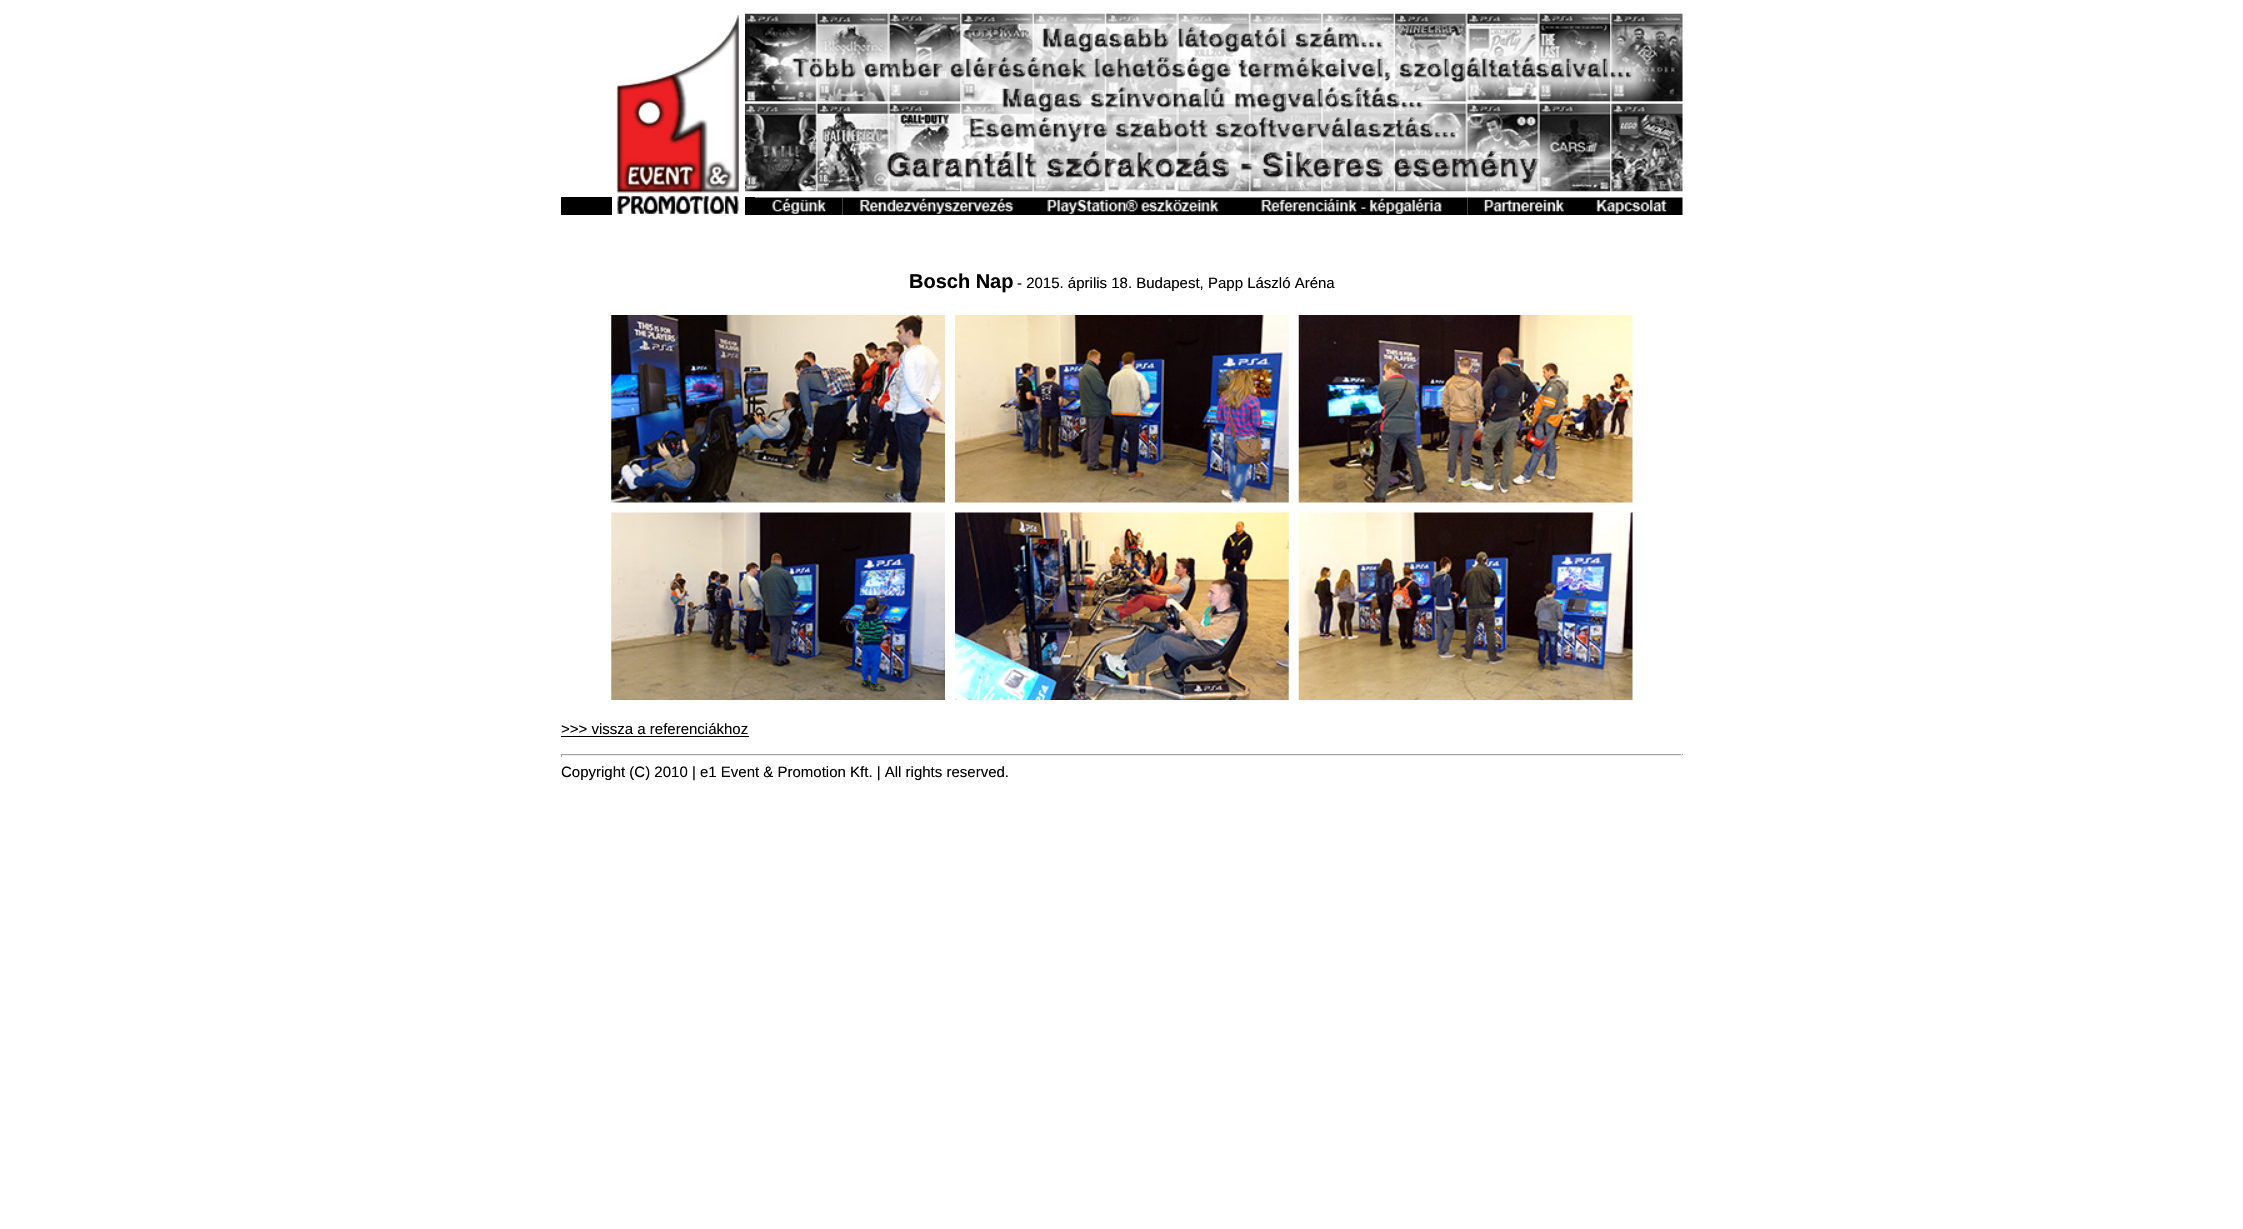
#include "include/core/SkBlurTypes.h"
#include "include/core/SkCanvas.h"
#include "include/core/SkData.h"
#include "include/core/SkFont.h"
#include "include/core/SkFontMgr.h"
#include "include/core/SkImage.h"
#include "include/core/SkMaskFilter.h"
#include "include/core/SkPaint.h"
#include "include/core/SkPathBuilder.h"
#include "include/core/SkTextBlob.h"
#include "include/effects/SkDashPathEffect.h"
#include "include/effects/SkGradientShader.h"
#include "include/utils/SkParsePath.h"

extern sk_sp<SkFontMgr> fontMgr;

void draw(SkCanvas* canvas) {
  SkPaint p;
  p.setAntiAlias(true);
  canvas->clear(SK_ColorWHITE);
  canvas->drawImageRect(SkImages::DeferredFromEncodedData(SkData::MakeFromFileName("images/1.png")), SkRect::MakeLTRB(616, 15, 739, 214), SkSamplingOptions());
  canvas->drawImageRect(SkImages::DeferredFromEncodedData(SkData::MakeFromFileName("images/2.png")), SkRect::MakeLTRB(745, 13, 1683, 192), SkSamplingOptions());
  p.setColor(SK_ColorBLACK);
  canvas->drawRect(SkRect::MakeLTRB(561, 197, 612, 215), p);
  canvas->drawRect(SkRect::MakeLTRB(745, 197, 755, 215), p);
  canvas->drawImageRect(SkImages::DeferredFromEncodedData(SkData::MakeFromFileName("images/3.png")), SkRect::MakeLTRB(755, 197, 843, 215), SkSamplingOptions());
  canvas->drawImageRect(SkImages::DeferredFromEncodedData(SkData::MakeFromFileName("images/4.png")), SkRect::MakeLTRB(842, 197, 1030, 215), SkSamplingOptions());
  canvas->drawImageRect(SkImages::DeferredFromEncodedData(SkData::MakeFromFileName("images/5.png")), SkRect::MakeLTRB(1030, 197, 1235, 215), SkSamplingOptions());
  canvas->drawImageRect(SkImages::DeferredFromEncodedData(SkData::MakeFromFileName("images/6.png")), SkRect::MakeLTRB(1235, 197, 1468, 215), SkSamplingOptions());
  canvas->drawImageRect(SkImages::DeferredFromEncodedData(SkData::MakeFromFileName("images/7.png")), SkRect::MakeLTRB(1467, 197, 1580, 215), SkSamplingOptions());
  canvas->drawImageRect(SkImages::DeferredFromEncodedData(SkData::MakeFromFileName("images/8.png")), SkRect::MakeLTRB(1580, 197, 1683, 215), SkSamplingOptions());
  canvas->drawImageRect(SkImages::DeferredFromEncodedData(SkData::MakeFromFileName("images/9.png")), SkRect::MakeLTRB(611, 315, 945, 503), SkSamplingOptions());
  canvas->drawImageRect(SkImages::DeferredFromEncodedData(SkData::MakeFromFileName("images/10.png")), SkRect::MakeLTRB(955, 315, 1289, 503), SkSamplingOptions());
  canvas->drawImageRect(SkImages::DeferredFromEncodedData(SkData::MakeFromFileName("images/11.png")), SkRect::MakeLTRB(1298, 315, 1633, 503), SkSamplingOptions());
  canvas->drawImageRect(SkImages::DeferredFromEncodedData(SkData::MakeFromFileName("images/12.png")), SkRect::MakeLTRB(611, 512, 945, 700), SkSamplingOptions());
  canvas->drawImageRect(SkImages::DeferredFromEncodedData(SkData::MakeFromFileName("images/13.png")), SkRect::MakeLTRB(955, 512, 1289, 700), SkSamplingOptions());
  canvas->drawImageRect(SkImages::DeferredFromEncodedData(SkData::MakeFromFileName("images/14.png")), SkRect::MakeLTRB(1298, 512, 1633, 700), SkSamplingOptions());
  canvas->drawRect(SkRect::MakeLTRB(561, 736, 749, 737), p);
  p.setColor(SkColorSetRGB(159, 159, 159));
  canvas->drawRect(SkRect::MakeLTRB(561, 754, 1683, 755), p);
  p.setColor(SkColorSetRGB(238, 238, 238));
  canvas->drawRect(SkRect::MakeLTRB(1681, 754, 1682, 757), p);
  canvas->drawRect(SkRect::MakeLTRB(561, 755, 1683, 756), p);
  p.setColor(SkColorSetRGB(159, 159, 159));
  canvas->drawRect(SkRect::MakeLTRB(561, 754, 562, 757), p);
  SkFont font1(fontMgr->matchFamilyStyle("Liberation Sans", SkFontStyle::Bold()), 20);
  font1.setSubpixel(true);
  p.setColor(SK_ColorBLACK);
  canvas->drawString("Bosch Nap", 909, 288, font1, p);
  SkFont font2(fontMgr->matchFamilyStyle("Liberation Sans", SkFontStyle::Normal()), 15);
  font2.setSubpixel(true);
  canvas->drawString("- 2015. április 18. Budapest, Papp László Aréna", 1017, 288, font2, p);
  canvas->drawString(">>> vissza a referenciákhoz", 561, 734, font2, p);
  canvas->drawString("Copyright (C) 2010 | e1 Event & Promotion Kft. | All rights reserved.", 561, 777, font2, p);
}
